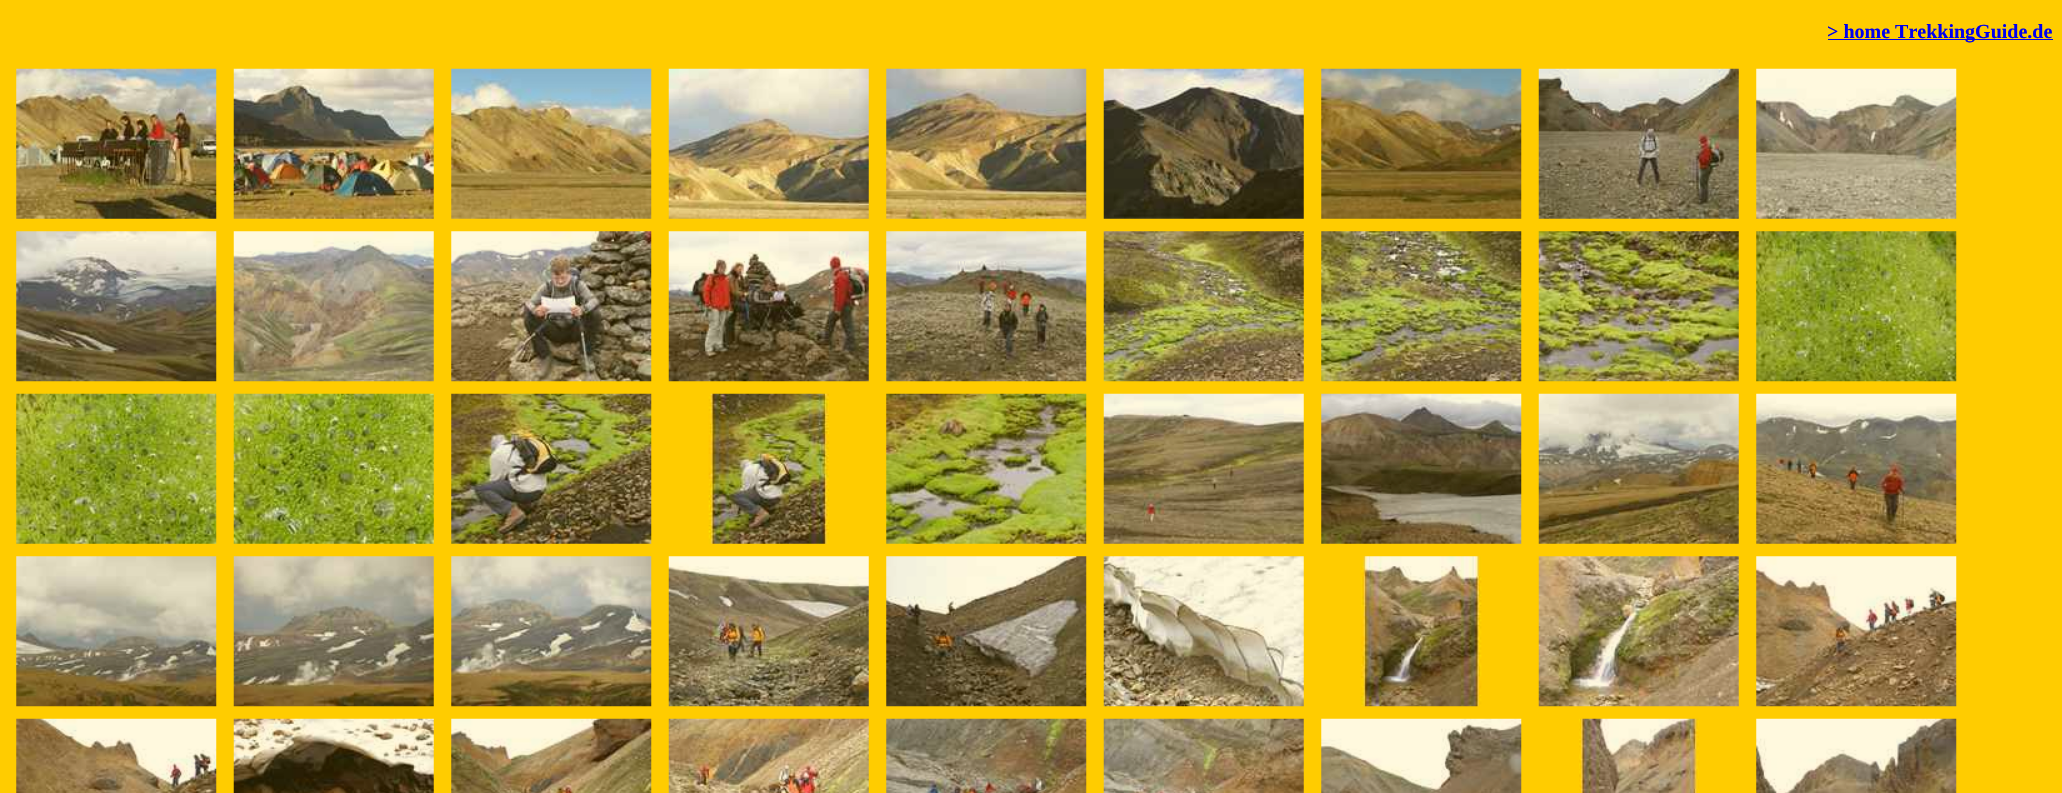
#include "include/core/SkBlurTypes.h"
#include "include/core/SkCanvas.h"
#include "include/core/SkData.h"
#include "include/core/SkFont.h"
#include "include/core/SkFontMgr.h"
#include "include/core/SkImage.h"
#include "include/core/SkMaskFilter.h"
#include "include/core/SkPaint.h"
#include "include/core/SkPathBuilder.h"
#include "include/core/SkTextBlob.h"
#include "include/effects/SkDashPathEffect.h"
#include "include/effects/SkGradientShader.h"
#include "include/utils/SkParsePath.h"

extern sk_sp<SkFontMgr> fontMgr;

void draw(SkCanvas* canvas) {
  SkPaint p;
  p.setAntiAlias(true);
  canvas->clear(SkColorSetRGB(255, 204, 0));
  p.setColor(SkColorSetRGB(0, 0, 238));
  canvas->drawRect(SkRect::MakeLTRB(1828, 39, 2053, 40), p);
  canvas->drawImageRect(SkImages::DeferredFromEncodedData(SkData::MakeFromFileName("images/1.png")), SkRect::MakeLTRB(16, 68, 217, 219), SkSamplingOptions());
  canvas->drawImageRect(SkImages::DeferredFromEncodedData(SkData::MakeFromFileName("images/2.png")), SkRect::MakeLTRB(233, 68, 434, 219), SkSamplingOptions());
  canvas->drawImageRect(SkImages::DeferredFromEncodedData(SkData::MakeFromFileName("images/3.png")), SkRect::MakeLTRB(451, 68, 652, 219), SkSamplingOptions());
  canvas->drawImageRect(SkImages::DeferredFromEncodedData(SkData::MakeFromFileName("images/4.png")), SkRect::MakeLTRB(668, 68, 869, 219), SkSamplingOptions());
  canvas->drawImageRect(SkImages::DeferredFromEncodedData(SkData::MakeFromFileName("images/5.png")), SkRect::MakeLTRB(886, 68, 1087, 219), SkSamplingOptions());
  canvas->drawImageRect(SkImages::DeferredFromEncodedData(SkData::MakeFromFileName("images/6.png")), SkRect::MakeLTRB(1103, 68, 1304, 219), SkSamplingOptions());
  canvas->drawImageRect(SkImages::DeferredFromEncodedData(SkData::MakeFromFileName("images/7.png")), SkRect::MakeLTRB(1321, 68, 1522, 219), SkSamplingOptions());
  canvas->drawImageRect(SkImages::DeferredFromEncodedData(SkData::MakeFromFileName("images/8.png")), SkRect::MakeLTRB(1538, 68, 1739, 219), SkSamplingOptions());
  canvas->drawImageRect(SkImages::DeferredFromEncodedData(SkData::MakeFromFileName("images/9.png")), SkRect::MakeLTRB(1756, 68, 1957, 219), SkSamplingOptions());
  canvas->drawImageRect(SkImages::DeferredFromEncodedData(SkData::MakeFromFileName("images/10.png")), SkRect::MakeLTRB(16, 231, 217, 382), SkSamplingOptions());
  canvas->drawImageRect(SkImages::DeferredFromEncodedData(SkData::MakeFromFileName("images/11.png")), SkRect::MakeLTRB(233, 231, 434, 382), SkSamplingOptions());
  canvas->drawImageRect(SkImages::DeferredFromEncodedData(SkData::MakeFromFileName("images/12.png")), SkRect::MakeLTRB(451, 231, 652, 382), SkSamplingOptions());
  canvas->drawImageRect(SkImages::DeferredFromEncodedData(SkData::MakeFromFileName("images/13.png")), SkRect::MakeLTRB(668, 231, 869, 382), SkSamplingOptions());
  canvas->drawImageRect(SkImages::DeferredFromEncodedData(SkData::MakeFromFileName("images/14.png")), SkRect::MakeLTRB(886, 231, 1087, 382), SkSamplingOptions());
  canvas->drawImageRect(SkImages::DeferredFromEncodedData(SkData::MakeFromFileName("images/15.png")), SkRect::MakeLTRB(1103, 231, 1304, 382), SkSamplingOptions());
  canvas->drawImageRect(SkImages::DeferredFromEncodedData(SkData::MakeFromFileName("images/16.png")), SkRect::MakeLTRB(1321, 231, 1522, 382), SkSamplingOptions());
  canvas->drawImageRect(SkImages::DeferredFromEncodedData(SkData::MakeFromFileName("images/17.png")), SkRect::MakeLTRB(1538, 231, 1739, 382), SkSamplingOptions());
  canvas->drawImageRect(SkImages::DeferredFromEncodedData(SkData::MakeFromFileName("images/18.png")), SkRect::MakeLTRB(1756, 231, 1957, 382), SkSamplingOptions());
  canvas->drawImageRect(SkImages::DeferredFromEncodedData(SkData::MakeFromFileName("images/19.png")), SkRect::MakeLTRB(16, 393, 217, 544), SkSamplingOptions());
  canvas->drawImageRect(SkImages::DeferredFromEncodedData(SkData::MakeFromFileName("images/20.png")), SkRect::MakeLTRB(233, 393, 434, 544), SkSamplingOptions());
  canvas->drawImageRect(SkImages::DeferredFromEncodedData(SkData::MakeFromFileName("images/21.png")), SkRect::MakeLTRB(451, 393, 652, 544), SkSamplingOptions());
  canvas->drawImageRect(SkImages::DeferredFromEncodedData(SkData::MakeFromFileName("images/22.png")), SkRect::MakeLTRB(708, 393, 829, 544), SkSamplingOptions());
  canvas->drawImageRect(SkImages::DeferredFromEncodedData(SkData::MakeFromFileName("images/23.png")), SkRect::MakeLTRB(886, 393, 1087, 544), SkSamplingOptions());
  canvas->drawImageRect(SkImages::DeferredFromEncodedData(SkData::MakeFromFileName("images/24.png")), SkRect::MakeLTRB(1103, 393, 1304, 544), SkSamplingOptions());
  canvas->drawImageRect(SkImages::DeferredFromEncodedData(SkData::MakeFromFileName("images/25.png")), SkRect::MakeLTRB(1321, 393, 1522, 544), SkSamplingOptions());
  canvas->drawImageRect(SkImages::DeferredFromEncodedData(SkData::MakeFromFileName("images/26.png")), SkRect::MakeLTRB(1538, 393, 1739, 544), SkSamplingOptions());
  canvas->drawImageRect(SkImages::DeferredFromEncodedData(SkData::MakeFromFileName("images/27.png")), SkRect::MakeLTRB(1756, 393, 1957, 544), SkSamplingOptions());
  canvas->drawImageRect(SkImages::DeferredFromEncodedData(SkData::MakeFromFileName("images/28.png")), SkRect::MakeLTRB(16, 556, 217, 707), SkSamplingOptions());
  canvas->drawImageRect(SkImages::DeferredFromEncodedData(SkData::MakeFromFileName("images/29.png")), SkRect::MakeLTRB(233, 556, 434, 707), SkSamplingOptions());
  canvas->drawImageRect(SkImages::DeferredFromEncodedData(SkData::MakeFromFileName("images/30.png")), SkRect::MakeLTRB(451, 556, 652, 707), SkSamplingOptions());
  canvas->drawImageRect(SkImages::DeferredFromEncodedData(SkData::MakeFromFileName("images/31.png")), SkRect::MakeLTRB(668, 556, 869, 707), SkSamplingOptions());
  canvas->drawImageRect(SkImages::DeferredFromEncodedData(SkData::MakeFromFileName("images/32.png")), SkRect::MakeLTRB(886, 556, 1087, 707), SkSamplingOptions());
  canvas->drawImageRect(SkImages::DeferredFromEncodedData(SkData::MakeFromFileName("images/33.png")), SkRect::MakeLTRB(1103, 556, 1304, 707), SkSamplingOptions());
  canvas->drawImageRect(SkImages::DeferredFromEncodedData(SkData::MakeFromFileName("images/34.png")), SkRect::MakeLTRB(1360, 556, 1482, 707), SkSamplingOptions());
  canvas->drawImageRect(SkImages::DeferredFromEncodedData(SkData::MakeFromFileName("images/35.png")), SkRect::MakeLTRB(1538, 556, 1739, 707), SkSamplingOptions());
  canvas->drawImageRect(SkImages::DeferredFromEncodedData(SkData::MakeFromFileName("images/36.png")), SkRect::MakeLTRB(1756, 556, 1957, 707), SkSamplingOptions());
  canvas->drawImageRect(SkImages::DeferredFromEncodedData(SkData::MakeFromFileName("images/37.png")), SkRect::MakeLTRB(16, 718, 217, 793), SkSamplingOptions());
  canvas->drawImageRect(SkImages::DeferredFromEncodedData(SkData::MakeFromFileName("images/38.png")), SkRect::MakeLTRB(233, 718, 434, 793), SkSamplingOptions());
  canvas->drawImageRect(SkImages::DeferredFromEncodedData(SkData::MakeFromFileName("images/39.png")), SkRect::MakeLTRB(451, 718, 652, 793), SkSamplingOptions());
  canvas->drawImageRect(SkImages::DeferredFromEncodedData(SkData::MakeFromFileName("images/40.png")), SkRect::MakeLTRB(668, 718, 869, 793), SkSamplingOptions());
  canvas->drawImageRect(SkImages::DeferredFromEncodedData(SkData::MakeFromFileName("images/41.png")), SkRect::MakeLTRB(886, 718, 1087, 793), SkSamplingOptions());
  canvas->drawImageRect(SkImages::DeferredFromEncodedData(SkData::MakeFromFileName("images/42.png")), SkRect::MakeLTRB(1103, 718, 1304, 793), SkSamplingOptions());
  canvas->drawImageRect(SkImages::DeferredFromEncodedData(SkData::MakeFromFileName("images/43.png")), SkRect::MakeLTRB(1321, 718, 1522, 793), SkSamplingOptions());
  canvas->drawImageRect(SkImages::DeferredFromEncodedData(SkData::MakeFromFileName("images/44.png")), SkRect::MakeLTRB(1579, 718, 1699, 793), SkSamplingOptions());
  canvas->drawImageRect(SkImages::DeferredFromEncodedData(SkData::MakeFromFileName("images/45.png")), SkRect::MakeLTRB(1756, 718, 1957, 793), SkSamplingOptions());
  SkFont font1(fontMgr->matchFamilyStyle("Liberation Serif", SkFontStyle::Bold()), 20);
  font1.setSubpixel(true);
  canvas->drawString("> home TrekkingGuide.de", 1827, 38, font1, p);
}
